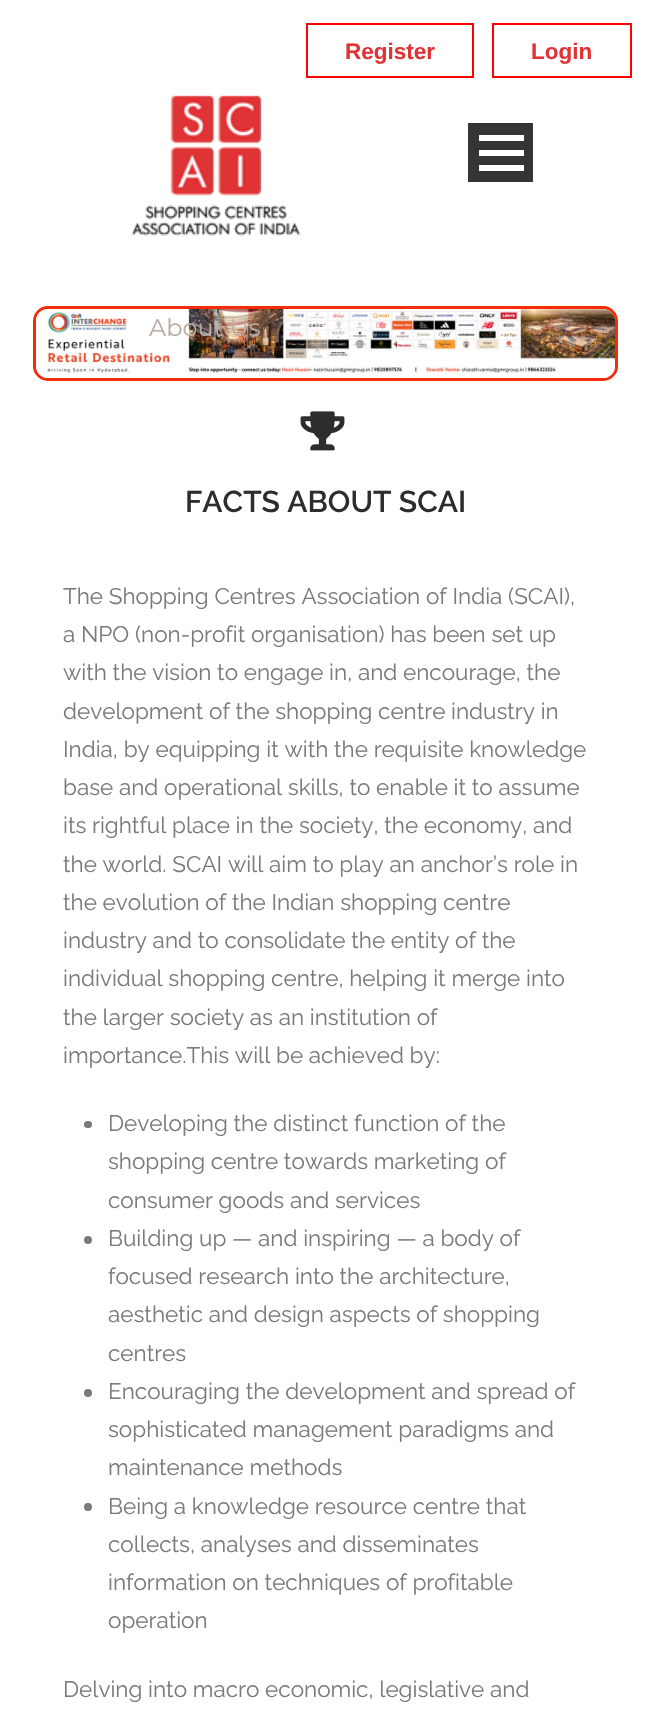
#include "include/core/SkBlurTypes.h"
#include "include/core/SkCanvas.h"
#include "include/core/SkData.h"
#include "include/core/SkFont.h"
#include "include/core/SkFontMgr.h"
#include "include/core/SkImage.h"
#include "include/core/SkMaskFilter.h"
#include "include/core/SkPaint.h"
#include "include/core/SkPathBuilder.h"
#include "include/core/SkTextBlob.h"
#include "include/effects/SkDashPathEffect.h"
#include "include/effects/SkGradientShader.h"
#include "include/utils/SkParsePath.h"

extern sk_sp<SkFontMgr> fontMgr;

void draw(SkCanvas* canvas) {
  SkPaint p;
  p.setAntiAlias(true);
  canvas->clear(SK_ColorWHITE);
  p.setStyle(SkPaint::kStroke_Style);
  p.setStrokeWidth(2);
  p.setColor(SkColorSetRGB(255, 0, 0));
  canvas->drawRect(SkRect::MakeLTRB(307, 24, 473, 77), p);
  canvas->drawRect(SkRect::MakeLTRB(493, 24, 631, 77), p);
  canvas->drawImageRect(SkImages::DeferredFromEncodedData(SkData::MakeFromFileName("images/1.png")), SkRect::MakeLTRB(131, 95, 301, 236), SkSamplingOptions());
  p.setStyle(SkPaint::kFill_Style);
  p.setColor(SkColorSetRGB(53, 53, 53));
  canvas->drawRect(SkRect::MakeLTRB(468, 123, 533, 182), p);
  p.setColor(SK_ColorWHITE);
  canvas->drawRect(SkRect::MakeLTRB(479, 165, 524, 171), p);
  canvas->drawRect(SkRect::MakeLTRB(479, 150, 524, 156), p);
  canvas->drawRect(SkRect::MakeLTRB(479, 135, 524, 141), p);
  p.setStyle(SkPaint::kStroke_Style);
  p.setStrokeWidth(3);
  p.setColor(SkColorSetRGB(246, 43, 10));
  canvas->drawRoundRect(SkRect::MakeLTRB(34.5f, 307.5f, 616.5f, 379.5f), 13.5f, 13.5f, p);
  canvas->drawImageRect(SkImages::DeferredFromEncodedData(SkData::MakeFromFileName("images/2.png")), SkRect::MakeLTRB(36, 309, 615, 378), SkSamplingOptions());
  canvas->drawImageRect(SkImages::DeferredFromEncodedData(SkData::MakeFromFileName("images/3.png")), SkRect::MakeLTRB(300, 411, 345, 451), SkSamplingOptions());
  p.setStyle(SkPaint::kFill_Style);
  p.setColor(SkColorSetRGB(122, 122, 122));
  canvas->drawRoundRect(SkRect::MakeLTRB(84, 1121, 92, 1128), 3.5f, 3.5f, p);
  canvas->drawCircle(88, 1240, 4, p);
  canvas->drawCircle(88, 1393, 4, p);
  canvas->drawCircle(88, 1507, 4, p);
  SkFont font1(fontMgr->matchFamilyStyle("Liberation Sans", SkFontStyle::Bold()), 22.5f);
  font1.setSubpixel(true);
  p.setColor(SkColorSetRGB(225, 51, 54));
  canvas->drawString("Register", 345, 59, font1, p);
  canvas->drawString("Login", 531, 59, font1, p);
  SkFont font2(fontMgr->matchFamilyStyle("Montserrat", SkFontStyle::Normal()), 24);
  font2.setSubpixel(true);
  p.setColor(SkColorSetRGB(187, 173, 165));
  canvas->drawString("About Us", 149, 336, font2, p);
  SkFont font3(fontMgr->matchFamilyStyle("Raleway", SkFontStyle(600, SkFontStyle::kNormal_Width, SkFontStyle::kUpright_Slant)), 30);
  font3.setSubpixel(true);
  p.setColor(SkColorSetRGB(43, 45, 46));
  canvas->drawString("FACTS ABOUT SCAI", 185, 512, font3, p);
  SkFont font4(fontMgr->matchFamilyStyle("Raleway", SkFontStyle::Normal()), 22.5f);
  font4.setSubpixel(true);
  p.setColor(SkColorSetRGB(122, 122, 122));
  canvas->drawString("The Shopping Centres Association of India (SCAI),", 63, 604, font4, p);
  canvas->drawString("a NPO (non-profit organisation) has been set up", 63, 642, font4, p);
  canvas->drawString("with the vision to engage in, and encourage, the", 63, 680, font4, p);
  canvas->drawString("development of the shopping centre industry in", 63, 719, font4, p);
  canvas->drawString("India, by equipping it with the requisite knowledge", 63, 757, font4, p);
  canvas->drawString("base and operational skills, to enable it to assume", 63, 795, font4, p);
  canvas->drawString("its rightful place in the society, the economy, and", 63, 833, font4, p);
  canvas->drawString("the world. SCAI will aim to play an anchor’s role in", 63, 872, font4, p);
  canvas->drawString("the evolution of the Indian shopping centre", 63, 910, font4, p);
  canvas->drawString("industry and to consolidate the entity of the", 63, 948, font4, p);
  canvas->drawString("individual shopping centre, helping it merge into", 63, 986, font4, p);
  canvas->drawString("the larger society as an institution of", 63, 1025, font4, p);
  canvas->drawString("importance.This will be achieved by:", 63, 1063, font4, p);
  canvas->drawString("Developing the distinct function of the", 108, 1131, font4, p);
  canvas->drawString("shopping centre towards marketing of", 108, 1169, font4, p);
  canvas->drawString("consumer goods and services", 108, 1208, font4, p);
  canvas->drawString("Building up — and inspiring — a body of", 108, 1246, font4, p);
  canvas->drawString("focused research into the architecture,", 108, 1284, font4, p);
  canvas->drawString("aesthetic and design aspects of shopping", 108, 1322, font4, p);
  canvas->drawString("centres", 108, 1361, font4, p);
  canvas->drawString("Encouraging the development and spread of", 108, 1399, font4, p);
  canvas->drawString("sophisticated management paradigms and", 108, 1437, font4, p);
  canvas->drawString("maintenance methods", 108, 1475, font4, p);
  canvas->drawString("Being a knowledge resource centre that", 108, 1514, font4, p);
  canvas->drawString("collects, analyses and disseminates", 108, 1552, font4, p);
  canvas->drawString("information on techniques of profitable", 108, 1590, font4, p);
  canvas->drawString("operation", 108, 1628, font4, p);
  canvas->drawString("Delving into macro economic, legislative and", 63, 1697, font4, p);
}
